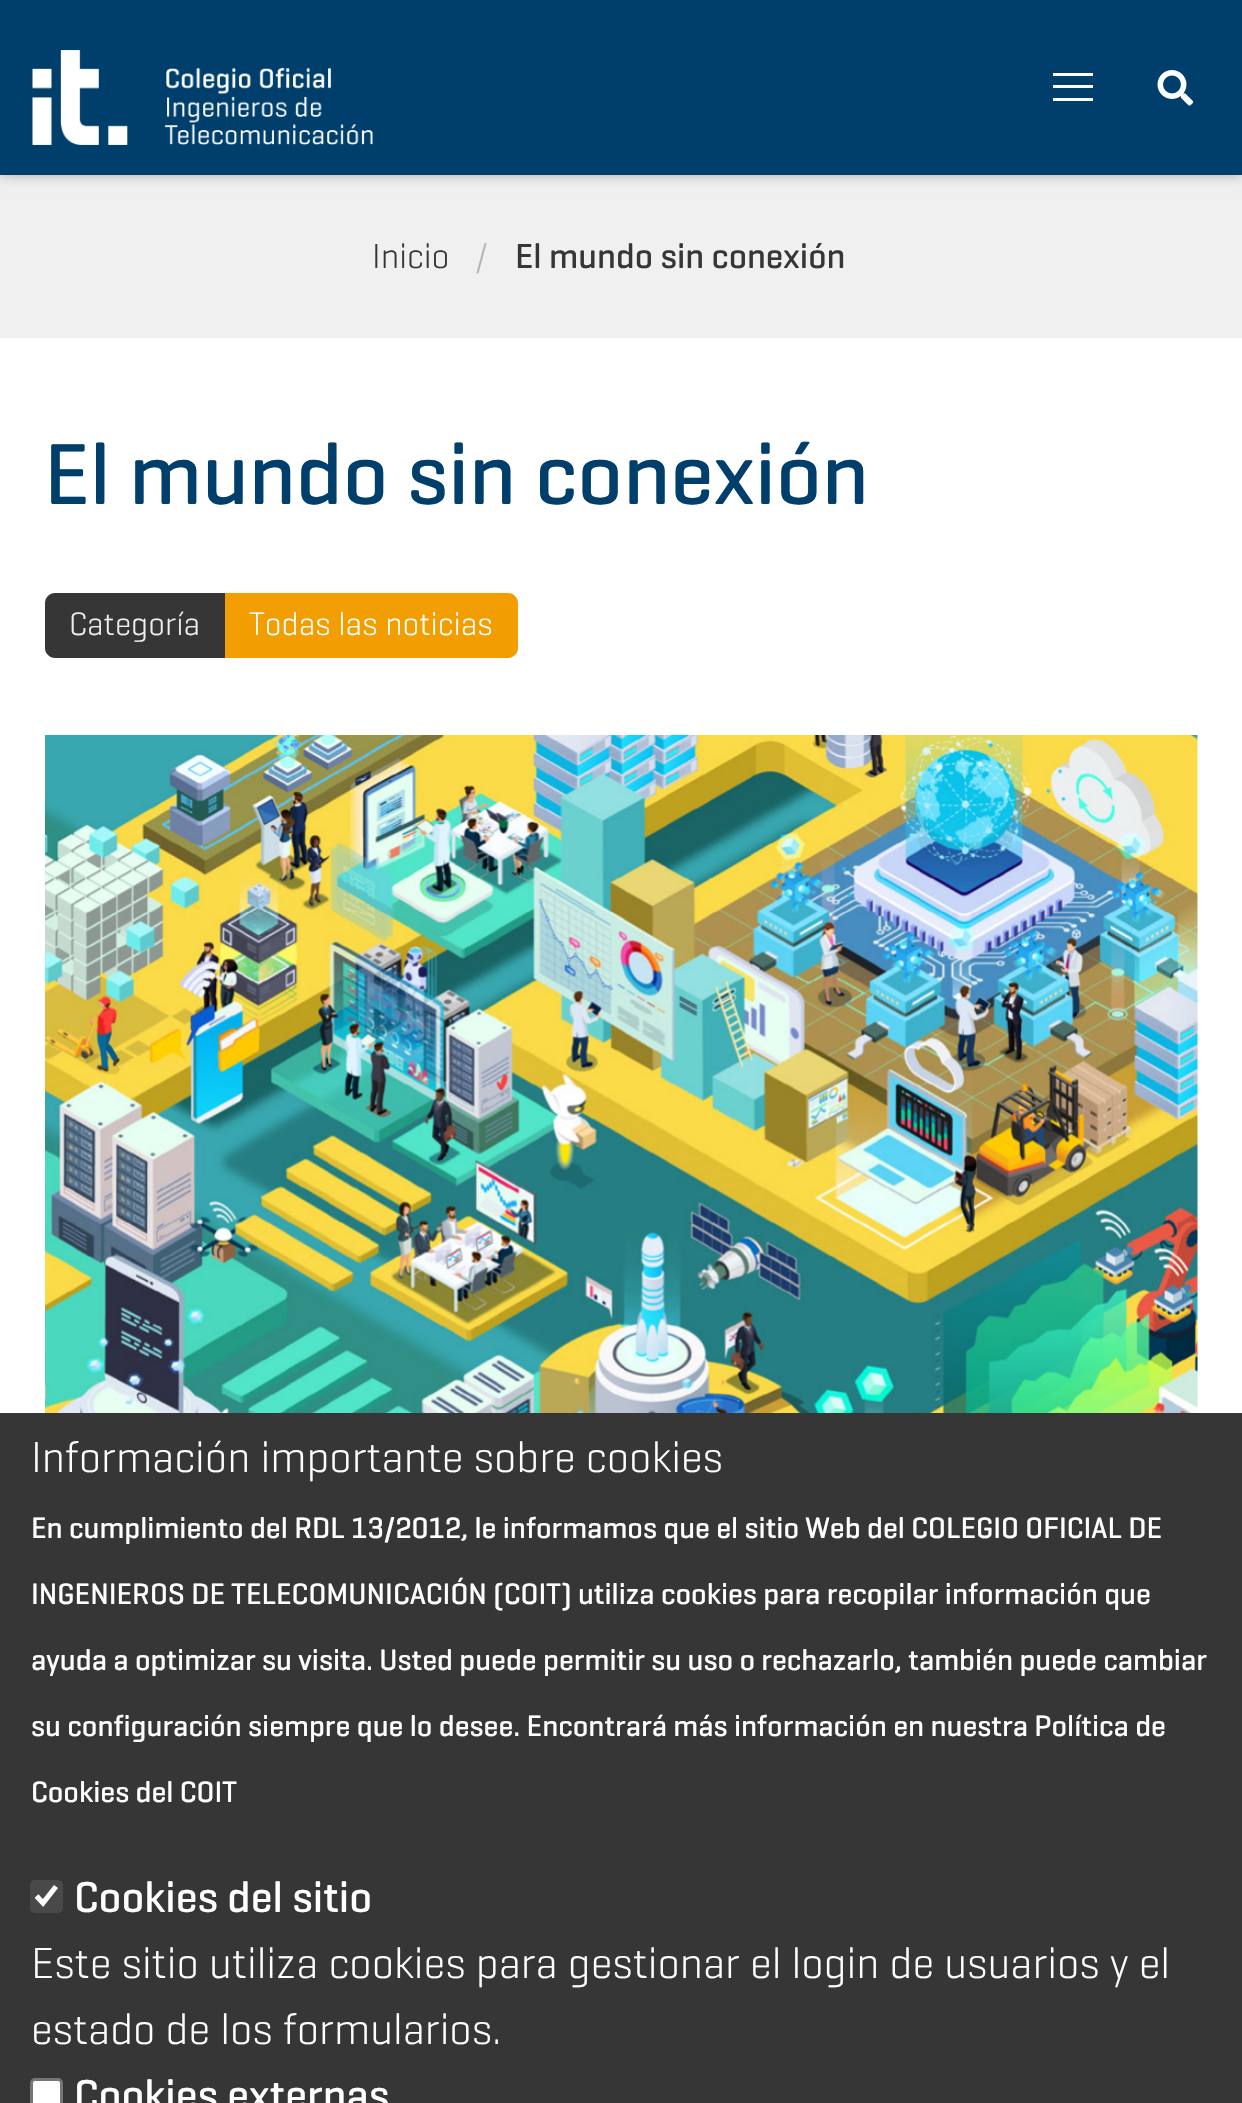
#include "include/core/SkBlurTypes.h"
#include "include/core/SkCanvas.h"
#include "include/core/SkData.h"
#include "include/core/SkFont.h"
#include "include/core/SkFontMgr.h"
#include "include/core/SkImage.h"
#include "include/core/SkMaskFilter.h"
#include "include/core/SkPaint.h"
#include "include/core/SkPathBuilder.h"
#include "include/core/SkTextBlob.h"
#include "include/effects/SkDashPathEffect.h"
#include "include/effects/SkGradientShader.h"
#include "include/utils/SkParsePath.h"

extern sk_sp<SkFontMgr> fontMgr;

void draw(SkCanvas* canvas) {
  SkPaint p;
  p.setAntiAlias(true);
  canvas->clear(SK_ColorWHITE);
  p.setColor(SkColorSetRGB(240, 240, 240));
  canvas->drawRect(SkRect::MakeLTRB(0, 175, 1242, 338), p);
  p.setColor(SkColorSetARGB(77, 0, 0, 0));
  p.setMaskFilter(SkMaskFilter::MakeBlur(kNormal_SkBlurStyle, 6));
  canvas->drawRect(SkRect::MakeLTRB(0, 0, 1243, 175), p);
  p.setMaskFilter(nullptr);
  p.setColor(SkColorSetRGB(0, 63, 108));
  canvas->drawRect(SkRect::MakeLTRB(0, 0, 1242, 175), p);
  canvas->drawImageRect(SkImages::DeferredFromEncodedData(SkData::MakeFromFileName("images/1.png")), SkRect::MakeLTRB(32, 50, 373, 145), SkSamplingOptions());
  p.setColor(SK_ColorWHITE);
  canvas->drawRect(SkRect::MakeLTRB(1053, 73, 1093, 76), p);
  canvas->drawRect(SkRect::MakeLTRB(1053, 85, 1093, 88), p);
  canvas->drawRect(SkRect::MakeLTRB(1053, 98, 1093, 101), p);
  canvas->drawImageRect(SkImages::DeferredFromEncodedData(SkData::MakeFromFileName("images/2.png")), SkRect::MakeLTRB(1157, 70, 1194, 106), SkSamplingOptions());
  p.setColor(SkColorSetRGB(54, 54, 54));
  canvas->drawPath(SkPathBuilder().moveTo(55, 593).lineTo(225, 593).lineTo(225, 658).lineTo(55, 658).cubicTo(49.5f, 658, 45, 653.5f, 45, 648).lineTo(45, 603).cubicTo(45, 597.5f, 49.5f, 593, 55, 593).close().detach(), p);
  p.setColor(SkColorSetRGB(242, 157, 0));
  canvas->drawPath(SkPathBuilder().moveTo(225, 593).lineTo(508, 593).cubicTo(513.5f, 593, 518, 597.5f, 518, 603).lineTo(518, 648).cubicTo(518, 653.5f, 513.5f, 658, 508, 658).lineTo(225, 658).close().detach(), p);
  canvas->drawImageRect(SkImages::DeferredFromEncodedData(SkData::MakeFromFileName("images/3.png")), SkRect::MakeLTRB(45, 735, 1198, 1413), SkSamplingOptions());
  p.setColor(SkColorSetRGB(54, 54, 54));
  canvas->drawRect(SkRect::MakeLTRB(0, 1413, 1242, 2103), p);
  p.setColor(SkColorSetRGB(73, 73, 73));
  canvas->drawRoundRect(SkRect::MakeLTRB(30, 1880, 63, 1913), 5, 5, p);
  p.setStyle(SkPaint::kStroke_Style);
  p.setStrokeWidth(5.2f);
  p.setColor(SK_ColorWHITE);
  canvas->drawPath(SkPathBuilder().moveTo(36.5f, 1896).lineTo(43, 1903).lineTo(56, 1886.5f).detach(), p);
  p.setStyle(SkPaint::kFill_Style);
  canvas->drawRoundRect(SkRect::MakeLTRB(31.5f, 2079.5f, 61.5f, 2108.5f), 3.5f, 3.5f, p);
  p.setStyle(SkPaint::kStroke_Style);
  p.setStrokeWidth(3);
  p.setColor(SkColorSetRGB(118, 118, 118));
  canvas->drawRoundRect(SkRect::MakeLTRB(31.5f, 2079.5f, 61.5f, 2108.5f), 3.5f, 3.5f, p);
  SkFont font1(fontMgr->matchFamilyStyle("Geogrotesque", SkFontStyle(300, SkFontStyle::kNormal_Width, SkFontStyle::kUpright_Slant)), 35.25f);
  font1.setSubpixel(true);
  p.setStyle(SkPaint::kFill_Style);
  p.setColor(SkColorSetRGB(54, 54, 54));
  canvas->drawString("Inicio", 372, 268, font1, p);
  p.setColor(SkColorSetRGB(181, 181, 181));
  canvas->drawString("/", 475, 268, font1, p);
  SkFont font2(fontMgr->matchFamilyStyle("Geogrotesque", SkFontStyle(500, SkFontStyle::kNormal_Width, SkFontStyle::kUpright_Slant)), 35.25f);
  font2.setSubpixel(true);
  p.setColor(SkColorSetRGB(54, 54, 54));
  canvas->drawString("El mundo sin conexión", 515, 268, font2, p);
  SkFont font3(fontMgr->matchFamilyStyle("Geogrotesque", SkFontStyle(500, SkFontStyle::kNormal_Width, SkFontStyle::kUpright_Slant)), 88);
  font3.setSubpixel(true);
  p.setColor(SkColorSetRGB(0, 63, 108));
  canvas->drawString("El mundo sin conexión", 44, 504, font3, p);
  SkFont font4(fontMgr->matchFamilyStyle("Geogrotesque", SkFontStyle(300, SkFontStyle::kNormal_Width, SkFontStyle::kUpright_Slant)), 33);
  font4.setSubpixel(true);
  p.setColor(SkColorSetRGB(240, 240, 240));
  canvas->drawString("Categoría", 69, 635, font4, p);
  p.setColor(SK_ColorWHITE);
  canvas->drawString("Todas las noticias", 249, 635, font4, p);
  SkFont font5(fontMgr->matchFamilyStyle("Geogrotesque", SkFontStyle(300, SkFontStyle::kNormal_Width, SkFontStyle::kUpright_Slant)), 44);
  font5.setSubpixel(true);
  canvas->drawString("Información importante sobre cookies", 31, 1472, font5, p);
  SkFont font6(fontMgr->matchFamilyStyle("Geogrotesque", SkFontStyle(500, SkFontStyle::kNormal_Width, SkFontStyle::kUpright_Slant)), 30);
  font6.setSubpixel(true);
  canvas->drawString("En cumplimiento del RDL 13/2012, le informamos que el sitio Web del COLEGIO OFICIAL DE", 31, 1538, font6, p);
  canvas->drawString("INGENIEROS DE TELECOMUNICACIÓN (COIT) utiliza cookies para recopilar información que", 31, 1604, font6, p);
  canvas->drawString("ayuda a optimizar su visita. Usted puede permitir su uso o rechazarlo, también puede cambiar", 31, 1670, font6, p);
  canvas->drawString("su configuración siempre que lo desee. Encontrará más información en nuestra Política de", 31, 1736, font6, p);
  canvas->drawString("Cookies del COIT", 31, 1802, font6, p);
  SkFont font7(fontMgr->matchFamilyStyle("Geogrotesque", SkFontStyle(500, SkFontStyle::kNormal_Width, SkFontStyle::kUpright_Slant)), 44);
  font7.setSubpixel(true);
  canvas->drawString("Cookies del sitio", 74, 1912, font7, p);
  canvas->drawString("Este sitio utiliza cookies para gestionar el login de usuarios y el", 31, 1978, font5, p);
  canvas->drawString("estado de los formularios.", 31, 2044, font5, p);
  canvas->drawString("Cookies externas", 74, 2110, font7, p);
}
